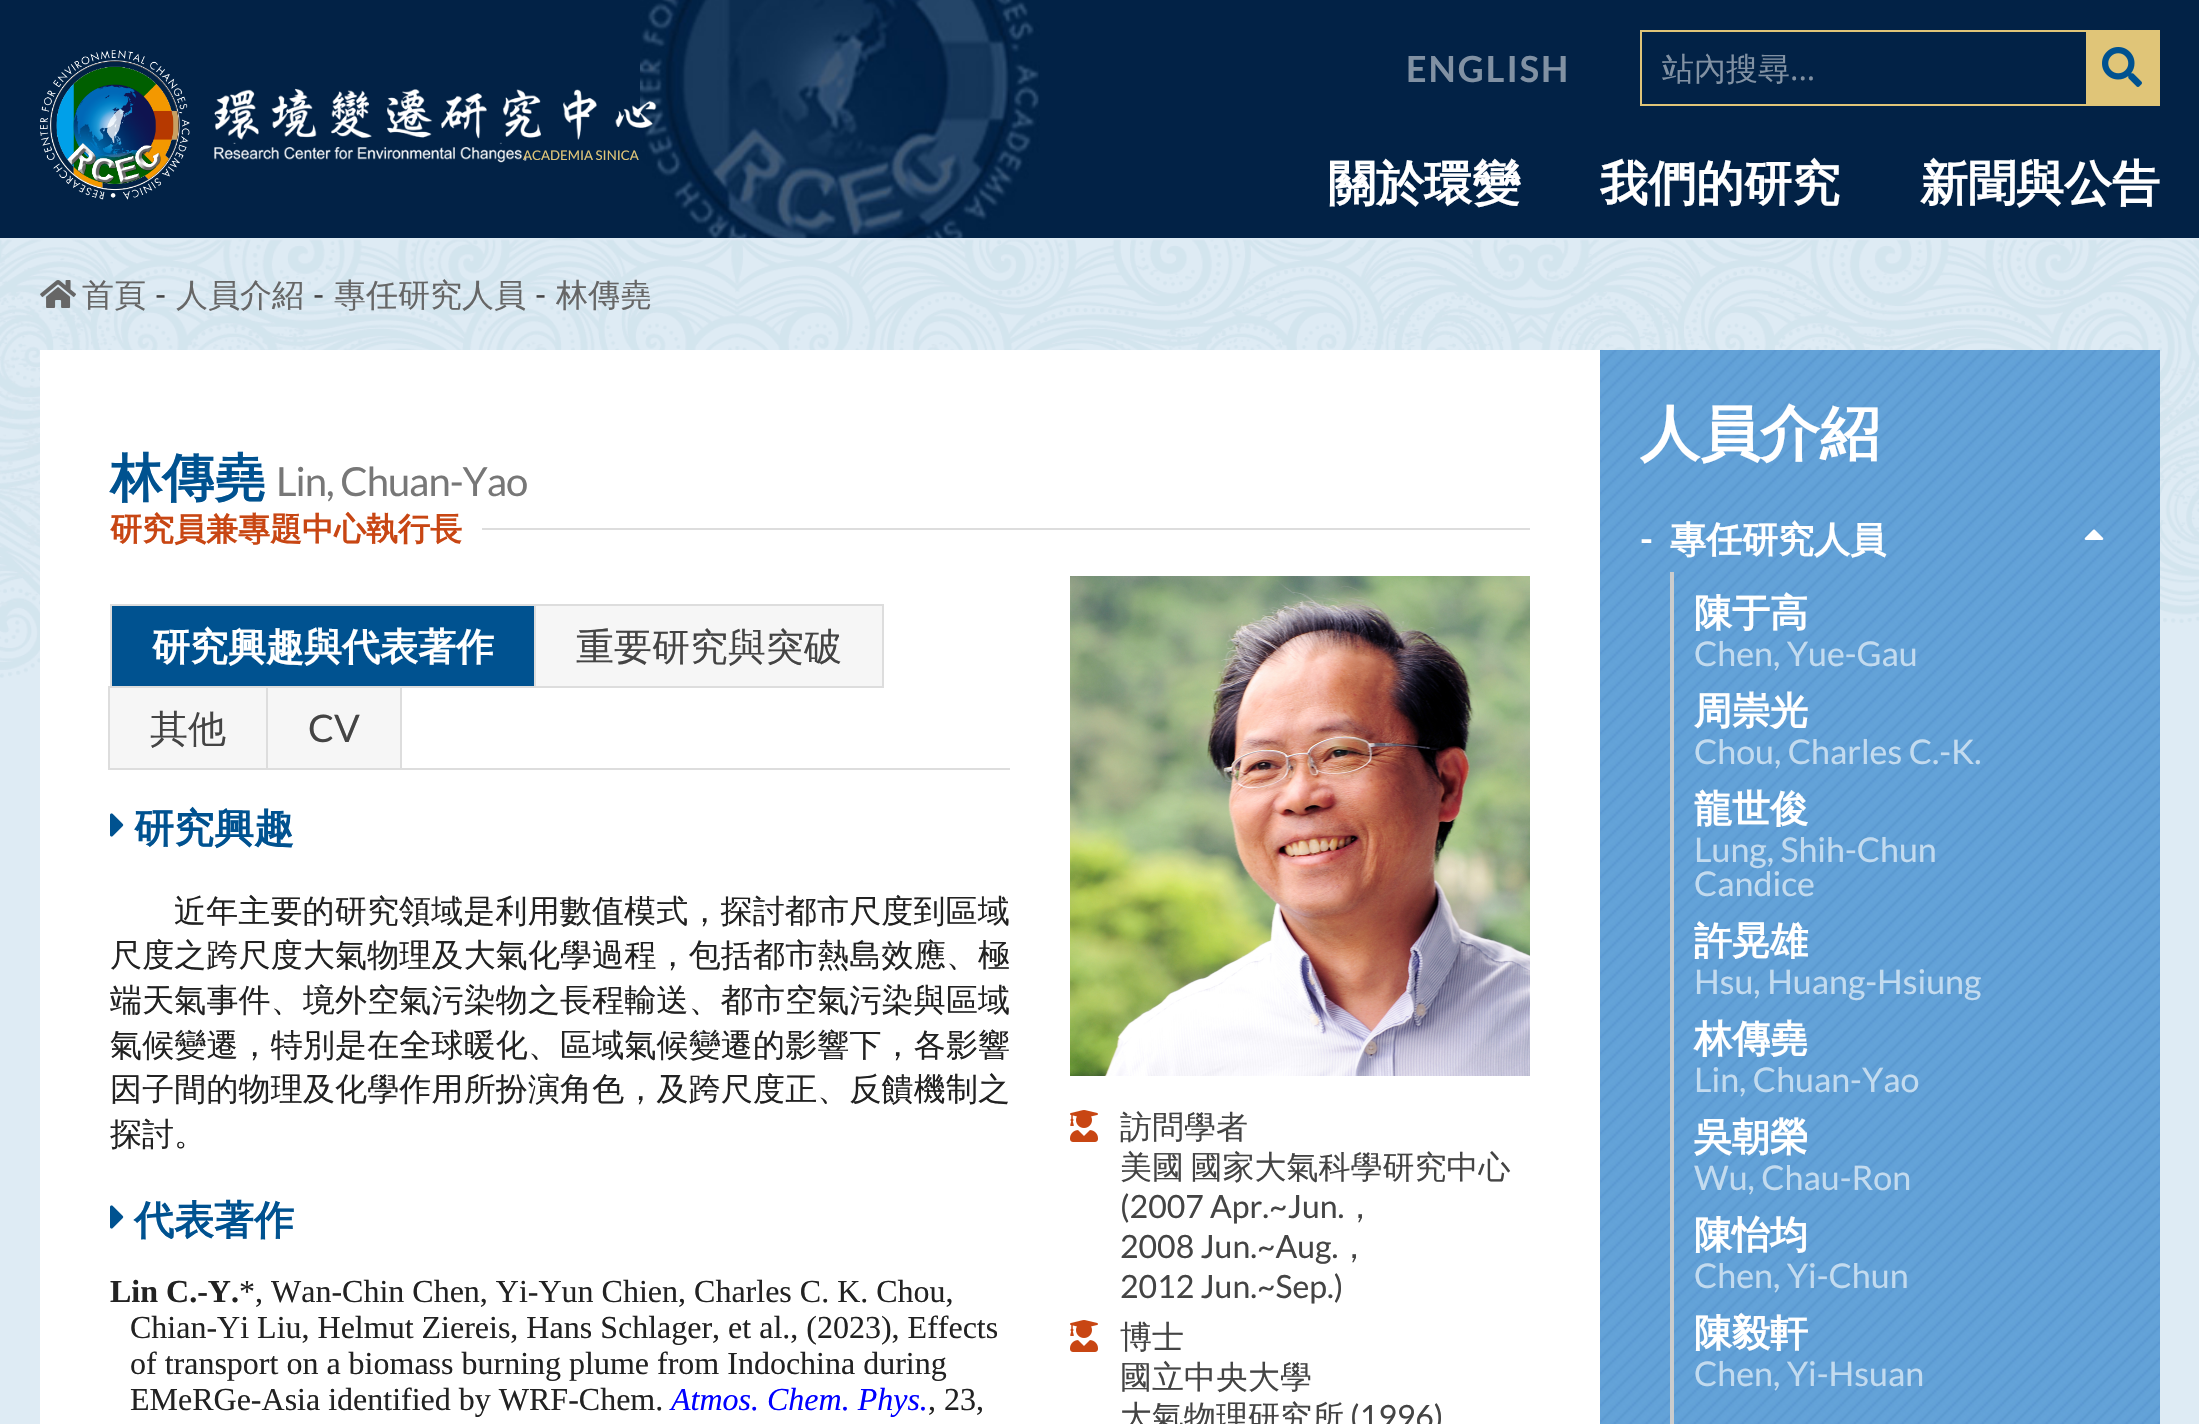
#include "include/core/SkBlurTypes.h"
#include "include/core/SkCanvas.h"
#include "include/core/SkData.h"
#include "include/core/SkFont.h"
#include "include/core/SkFontMgr.h"
#include "include/core/SkImage.h"
#include "include/core/SkMaskFilter.h"
#include "include/core/SkPaint.h"
#include "include/core/SkPathBuilder.h"
#include "include/core/SkTextBlob.h"
#include "include/effects/SkDashPathEffect.h"
#include "include/effects/SkGradientShader.h"
#include "include/utils/SkParsePath.h"

extern sk_sp<SkFontMgr> fontMgr;

void draw(SkCanvas* canvas) {
  SkPaint p;
  p.setAntiAlias(true);
  auto spacedText = [&](const char* s, float x, float y, const SkFont& font, const SkPaint& ink, float letter, float word) {
    std::vector<SkGlyphID> glyphs(font.countText(s, strlen(s), SkTextEncoding::kUTF8));
    std::vector<float> xs(glyphs.size());
    font.textToGlyphs(s, strlen(s), SkTextEncoding::kUTF8, glyphs);
    font.getXPos(glyphs, xs, x);
    float extra = 0;
    for (size_t i = 0; i < glyphs.size(); i++) {
      xs[i] += extra;
      extra += letter + word * (glyphs[i] == font.unicharToGlyph(' '));
    }
    canvas->drawTextBlob(SkTextBlob::MakeFromPosHGlyphs(glyphs, xs, y, font), 0, 0, ink);
  };
  canvas->clear(SkColorSetRGB(2, 34, 70));
  canvas->drawImageRect(SkImages::DeferredFromEncodedData(SkData::MakeFromFileName("images/1.png")), SkRect::MakeLTRB(640, 0, 1040, 238), SkSamplingOptions());
  p.setStyle(SkPaint::kStroke_Style);
  p.setStrokeWidth(2);
  p.setColor(SkColorSetRGB(224, 197, 120));
  canvas->drawRect(SkRect::MakeLTRB(1641, 31, 2159, 105), p);
  p.setStyle(SkPaint::kFill_Style);
  canvas->drawRect(SkRect::MakeLTRB(2086, 32, 2158, 104), p);
  canvas->drawImageRect(SkImages::DeferredFromEncodedData(SkData::MakeFromFileName("images/2.png")), SkRect::MakeLTRB(2102, 47, 2142, 87), SkSamplingOptions());
  canvas->drawImageRect(SkImages::DeferredFromEncodedData(SkData::MakeFromFileName("images/3.png")), SkRect::MakeLTRB(40, 50, 190, 200), SkSamplingOptions());
  canvas->drawImageRect(SkImages::DeferredFromEncodedData(SkData::MakeFromFileName("images/4.png")), SkRect::MakeLTRB(214, 88, 657, 163), SkSamplingOptions());
  p.setColor(SkColorSetRGB(222, 235, 244));
  canvas->drawRect(SkRect::MakeLTRB(0, 238, 2199, 1424), p);
  canvas->drawImageRect(SkImages::DeferredFromEncodedData(SkData::MakeFromFileName("images/5.png")), SkRect::MakeLTRB(0, 238, 2199, 678), SkSamplingOptions());
  canvas->drawImageRect(SkImages::DeferredFromEncodedData(SkData::MakeFromFileName("images/6.png")), SkRect::MakeLTRB(40, 280, 76, 308), SkSamplingOptions());
  p.setColor(SK_ColorWHITE);
  canvas->drawRect(SkRect::MakeLTRB(40, 350, 1600, 1424), p);
  p.setColor(SkColorSetRGB(221, 221, 221));
  canvas->drawRect(SkRect::MakeLTRB(482, 528, 1530, 530), p);
  canvas->drawRect(SkRect::MakeLTRB(402, 768, 1010, 770), p);
  p.setColor(SkColorSetRGB(246, 246, 246));
  canvas->drawRect(SkRect::MakeLTRB(535, 605, 883, 687), p);
  p.setStyle(SkPaint::kStroke_Style);
  p.setColor(SkColorSetRGB(221, 221, 221));
  canvas->drawRect(SkRect::MakeLTRB(535, 605, 883, 687), p);
  p.setStyle(SkPaint::kFill_Style);
  p.setColor(SkColorSetRGB(246, 246, 246));
  canvas->drawRect(SkRect::MakeLTRB(109, 687, 267, 769), p);
  p.setStyle(SkPaint::kStroke_Style);
  p.setColor(SkColorSetRGB(221, 221, 221));
  canvas->drawRect(SkRect::MakeLTRB(109, 687, 267, 769), p);
  p.setStyle(SkPaint::kFill_Style);
  p.setColor(SkColorSetRGB(246, 246, 246));
  canvas->drawRect(SkRect::MakeLTRB(267, 687, 401, 769), p);
  p.setStyle(SkPaint::kStroke_Style);
  p.setColor(SkColorSetRGB(221, 221, 221));
  canvas->drawRect(SkRect::MakeLTRB(267, 687, 401, 769), p);
  p.setStyle(SkPaint::kFill_Style);
  p.setColor(SkColorSetRGB(0, 82, 144));
  canvas->drawRect(SkRect::MakeLTRB(111, 605, 535, 687), p);
  p.setStyle(SkPaint::kStroke_Style);
  p.setColor(SkColorSetRGB(221, 221, 221));
  canvas->drawRect(SkRect::MakeLTRB(111, 605, 535, 687), p);
  canvas->drawImageRect(SkImages::DeferredFromEncodedData(SkData::MakeFromFileName("images/7.png")), SkRect::MakeLTRB(110, 813, 124, 837), SkSamplingOptions());
  canvas->drawImageRect(SkImages::DeferredFromEncodedData(SkData::MakeFromFileName("images/7.png")), SkRect::MakeLTRB(110, 1205, 124, 1229), SkSamplingOptions());
  canvas->drawImageRect(SkImages::DeferredFromEncodedData(SkData::MakeFromFileName("images/8.png")), SkRect::MakeLTRB(1070, 576, 1530, 1076), SkSamplingOptions());
  canvas->drawImageRect(SkImages::DeferredFromEncodedData(SkData::MakeFromFileName("images/9.png")), SkRect::MakeLTRB(1070, 1110, 1098, 1142), SkSamplingOptions());
  canvas->drawImageRect(SkImages::DeferredFromEncodedData(SkData::MakeFromFileName("images/9.png")), SkRect::MakeLTRB(1070, 1320, 1098, 1352), SkSamplingOptions());
  canvas->drawImageRect(SkImages::DeferredFromEncodedData(SkData::MakeFromFileName("images/10.png")), SkRect::MakeLTRB(1600, 350, 2160, 1424), SkSamplingOptions());
  canvas->drawImageRect(SkImages::DeferredFromEncodedData(SkData::MakeFromFileName("images/11.png")), SkRect::MakeLTRB(2084, 529, 2104, 540), SkSamplingOptions());
  p.setStyle(SkPaint::kFill_Style);
  p.setColor(SkColorSetRGB(204, 204, 204));
  canvas->drawRect(SkRect::MakeLTRB(1670, 572, 1674, 1424), p);
  SkFont font1(fontMgr->matchFamilyStyle("Lato", SkFontStyle::Bold()), 36);
  font1.setSubpixel(true);
  p.setColor(SkColorSetRGB(129, 145, 163));
  spacedText("ENGLISH", 1406, 82, font1, p, 2, 0);
  SkFont font2(fontMgr->matchFamilyStyle("WenQuanYi Zen Hei", SkFontStyle(500, SkFontStyle::kNormal_Width, SkFontStyle::kUpright_Slant)), 32);
  font2.setSubpixel(true);
  canvas->drawString("站內搜尋", 1662, 80, font2, p);
  SkFont font3(fontMgr->matchFamilyStyle("Open Sans", SkFontStyle::Normal()), 32);
  font3.setSubpixel(true);
  canvas->drawString("...", 1790, 80, font3, p);
  SkFont font4(fontMgr->matchFamilyStyle("Lato", SkFontStyle::Normal()), 13.25f);
  font4.setSubpixel(true);
  p.setColor(SkColorSetRGB(224, 197, 120));
  canvas->drawString("ACADEMIA SINICA", 523, 160, font4, p);
  SkFont font5(fontMgr->matchFamilyStyle("WenQuanYi Zen Hei", SkFontStyle::Bold()), 48);
  font5.setSubpixel(true);
  p.setColor(SK_ColorWHITE);
  canvas->drawString("關於環變", 1328, 200, font5, p);
  canvas->drawString("我們的研究", 1600, 200, font5, p);
  canvas->drawString("新聞與公告", 1920, 200, font5, p);
  p.setColor(SkColorSetRGB(102, 102, 102));
  canvas->drawString("首頁", 82, 306, font2, p);
  SkFont font6(fontMgr->matchFamilyStyle("Lato", SkFontStyle::Normal()), 32);
  font6.setSubpixel(true);
  p.setColor(SkColorSetRGB(68, 68, 68));
  canvas->drawString("-", 155, 306, font6, p);
  p.setColor(SkColorSetRGB(102, 102, 102));
  canvas->drawString("人員介紹", 176, 306, font2, p);
  p.setColor(SkColorSetRGB(68, 68, 68));
  canvas->drawString("-", 313, 306, font6, p);
  p.setColor(SkColorSetRGB(102, 102, 102));
  canvas->drawString("專任研究人員", 334, 306, font2, p);
  p.setColor(SkColorSetRGB(68, 68, 68));
  canvas->drawString("-", 535, 306, font6, p);
  p.setColor(SkColorSetRGB(102, 102, 102));
  canvas->drawString("林傳堯", 556, 306, font2, p);
  SkFont font7(fontMgr->matchFamilyStyle("WenQuanYi Zen Hei", SkFontStyle::Bold()), 52);
  font7.setSubpixel(true);
  p.setColor(SkColorSetRGB(0, 82, 144));
  canvas->drawString("林傳堯", 110, 496, font7, p);
  SkFont font8(fontMgr->matchFamilyStyle("Lato", SkFontStyle::Normal()), 40);
  font8.setSubpixel(true);
  p.setColor(SkColorSetRGB(119, 119, 119));
  spacedText("Lin, Chuan-Yao", 276, 496, font8, p, -1, 0);
  SkFont font9(fontMgr->matchFamilyStyle("WenQuanYi Zen Hei", SkFontStyle::Bold()), 32);
  font9.setSubpixel(true);
  p.setColor(SkColorSetRGB(200, 70, 19));
  canvas->drawString("研究員兼專題中心執行長", 110, 540, font9, p);
  SkFont font10(fontMgr->matchFamilyStyle("WenQuanYi Zen Hei", SkFontStyle::Bold()), 38);
  font10.setSubpixel(true);
  p.setColor(SK_ColorWHITE);
  canvas->drawString("研究興趣與代表著作", 152, 660, font10, p);
  SkFont font11(fontMgr->matchFamilyStyle("WenQuanYi Zen Hei", SkFontStyle(500, SkFontStyle::kNormal_Width, SkFontStyle::kUpright_Slant)), 38);
  font11.setSubpixel(true);
  p.setColor(SkColorSetRGB(68, 68, 68));
  canvas->drawString("重要研究與突破", 576, 660, font11, p);
  canvas->drawString("其他", 150, 742, font11, p);
  SkFont font12(fontMgr->matchFamilyStyle("Lato", SkFontStyle::Normal()), 38);
  font12.setSubpixel(true);
  canvas->drawString("CV", 308, 742, font12, p);
  SkFont font13(fontMgr->matchFamilyStyle("WenQuanYi Zen Hei", SkFontStyle::Bold()), 40);
  font13.setSubpixel(true);
  p.setColor(SkColorSetRGB(0, 82, 144));
  canvas->drawString("研究興趣", 134, 842, font13, p);
  p.setColor(SkColorSetRGB(34, 34, 34));
  spacedText("近年主要的研究領域是利用數值模式，探討都市尺度到區域", 174, 922, font2, p, 0.15f, 0);
  spacedText("尺度之跨尺度大氣物理及大氣化學過程，包括都市熱島效應、極", 110, 966, font2, p, 0.15f, 0);
  spacedText("端天氣事件、境外空氣污染物之長程輸送、都市空氣污染與區域", 110, 1011, font2, p, 0.15f, 0);
  spacedText("氣候變遷，特別是在全球暖化、區域氣候變遷的影響下，各影響", 110, 1056, font2, p, 0.15f, 0);
  spacedText("因子間的物理及化學作用所扮演角色，及跨尺度正、反饋機制之", 110, 1100, font2, p, 0.15f, 0);
  canvas->drawString("探討。", 110, 1145, font2, p);
  p.setColor(SkColorSetRGB(0, 82, 144));
  canvas->drawString("代表著作", 134, 1234, font13, p);
  SkFont font14(fontMgr->matchFamilyStyle("Liberation Serif", SkFontStyle::Bold()), 32);
  font14.setSubpixel(true);
  p.setColor(SkColorSetRGB(34, 34, 34));
  canvas->drawString("Lin C.-Y.", 110, 1302, font14, p);
  SkFont font15(fontMgr->matchFamilyStyle("Liberation Serif", SkFontStyle::Normal()), 32);
  font15.setSubpixel(true);
  canvas->drawString("*, Wan-Chin Chen, Yi-Yun Chien, Charles C. K. Chou,", 239, 1302, font15, p);
  canvas->drawString("Chian-Yi Liu, Helmut Ziereis, Hans Schlager, et al., (2023), Effects", 130, 1338, font15, p);
  canvas->drawString("of transport on a biomass burning plume from Indochina during", 130, 1374, font15, p);
  canvas->drawString("EMeRGe-Asia identified by WRF-Chem.", 130, 1410, font15, p);
  SkFont font16(fontMgr->matchFamilyStyle("Liberation Serif", SkFontStyle::Italic()), 32);
  font16.setSubpixel(true);
  p.setColor(SkColorSetRGB(0, 0, 255));
  canvas->drawString("Atmos. Chem. Phys.", 671, 1410, font16, p);
  p.setColor(SkColorSetRGB(34, 34, 34));
  canvas->drawString(", 23,", 928, 1410, font15, p);
  p.setColor(SkColorSetRGB(68, 68, 68));
  canvas->drawString("訪問學者", 1120, 1138, font2, p);
  spacedText("美國 國家大氣科學研究中心", 1120, 1178, font2, p, 0, -3);
  canvas->drawString("(2007 Apr.~Jun.", 1120, 1218, font6, p);
  canvas->drawString("，", 1344, 1218, font2, p);
  canvas->drawString("2008 Jun.~Aug.", 1120, 1258, font6, p);
  canvas->drawString("，", 1338, 1258, font2, p);
  canvas->drawString("2012 Jun.~Sep.)", 1120, 1298, font6, p);
  canvas->drawString("博士", 1120, 1348, font2, p);
  canvas->drawString("國立中央大學", 1120, 1388, font2, p);
  canvas->drawString("大氣物理研究所", 1120, 1428, font2, p);
  canvas->drawString("(1996)", 1350, 1428, font6, p);
  SkFont font17(fontMgr->matchFamilyStyle("WenQuanYi Zen Hei", SkFontStyle::Bold()), 60);
  font17.setSubpixel(true);
  p.setColor(SK_ColorWHITE);
  canvas->drawString("人員介紹", 1640, 454, font17, p);
  canvas->drawString("-", 1640, 552, font1, p);
  SkFont font18(fontMgr->matchFamilyStyle("WenQuanYi Zen Hei", SkFontStyle::Bold()), 36);
  font18.setSubpixel(true);
  canvas->drawString("專任研究人員", 1670, 552, font18, p);
  canvas->drawString("陳于高", 1694, 626, font10, p);
  SkFont font19(fontMgr->matchFamilyStyle("Lato", SkFontStyle::Normal()), 34);
  font19.setSubpixel(true);
  p.setColor(SkColorSetRGB(195, 219, 239));
  canvas->drawString("Chen, Yue-Gau", 1694, 666, font19, p);
  p.setColor(SK_ColorWHITE);
  canvas->drawString("周崇光", 1694, 724, font10, p);
  p.setColor(SkColorSetRGB(195, 219, 239));
  canvas->drawString("Chou, Charles C.-K.", 1694, 764, font19, p);
  p.setColor(SK_ColorWHITE);
  canvas->drawString("龍世俊", 1694, 822, font10, p);
  p.setColor(SkColorSetRGB(195, 219, 239));
  canvas->drawString("Lung, Shih-Chun", 1694, 862, font19, p);
  canvas->drawString("Candice", 1694, 896, font19, p);
  p.setColor(SK_ColorWHITE);
  canvas->drawString("許晃雄", 1694, 954, font10, p);
  p.setColor(SkColorSetRGB(195, 219, 239));
  canvas->drawString("Hsu, Huang-Hsiung", 1694, 994, font19, p);
  p.setColor(SK_ColorWHITE);
  canvas->drawString("林傳堯", 1694, 1052, font10, p);
  p.setColor(SkColorSetRGB(195, 219, 239));
  canvas->drawString("Lin, Chuan-Yao", 1694, 1092, font19, p);
  p.setColor(SK_ColorWHITE);
  canvas->drawString("吳朝榮", 1694, 1150, font10, p);
  p.setColor(SkColorSetRGB(195, 219, 239));
  canvas->drawString("Wu, Chau-Ron", 1694, 1190, font19, p);
  p.setColor(SK_ColorWHITE);
  canvas->drawString("陳怡均", 1694, 1248, font10, p);
  p.setColor(SkColorSetRGB(195, 219, 239));
  canvas->drawString("Chen, Yi-Chun", 1694, 1288, font19, p);
  p.setColor(SK_ColorWHITE);
  canvas->drawString("陳毅軒", 1694, 1346, font10, p);
  p.setColor(SkColorSetRGB(195, 219, 239));
  canvas->drawString("Chen, Yi-Hsuan", 1694, 1386, font19, p);
}
